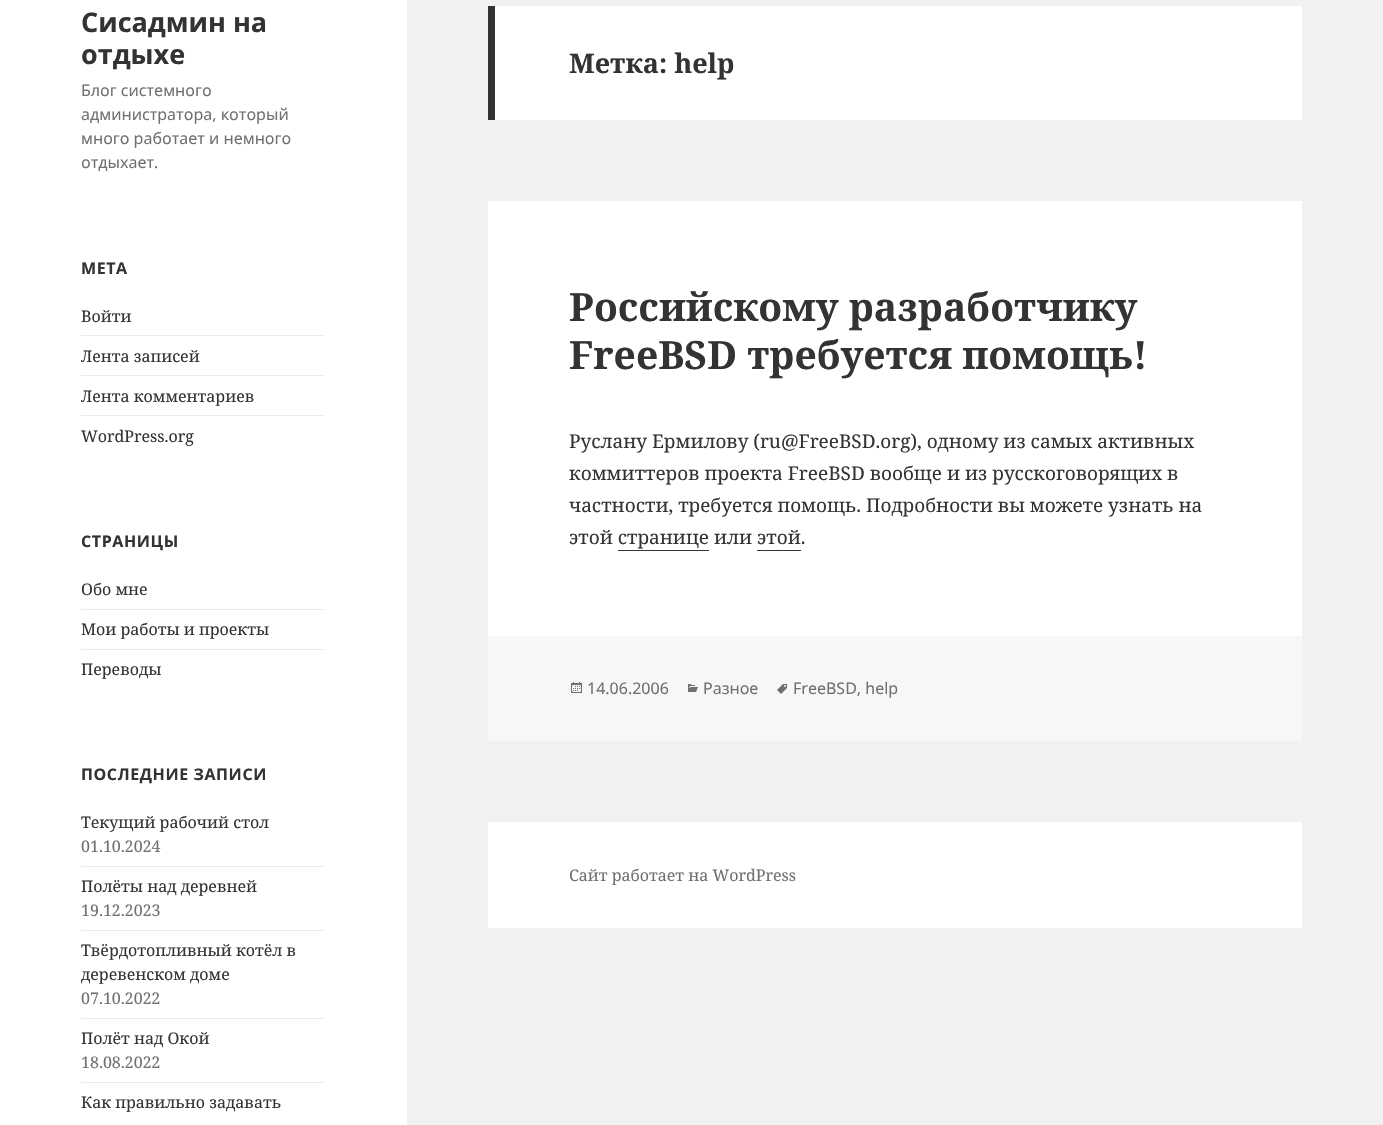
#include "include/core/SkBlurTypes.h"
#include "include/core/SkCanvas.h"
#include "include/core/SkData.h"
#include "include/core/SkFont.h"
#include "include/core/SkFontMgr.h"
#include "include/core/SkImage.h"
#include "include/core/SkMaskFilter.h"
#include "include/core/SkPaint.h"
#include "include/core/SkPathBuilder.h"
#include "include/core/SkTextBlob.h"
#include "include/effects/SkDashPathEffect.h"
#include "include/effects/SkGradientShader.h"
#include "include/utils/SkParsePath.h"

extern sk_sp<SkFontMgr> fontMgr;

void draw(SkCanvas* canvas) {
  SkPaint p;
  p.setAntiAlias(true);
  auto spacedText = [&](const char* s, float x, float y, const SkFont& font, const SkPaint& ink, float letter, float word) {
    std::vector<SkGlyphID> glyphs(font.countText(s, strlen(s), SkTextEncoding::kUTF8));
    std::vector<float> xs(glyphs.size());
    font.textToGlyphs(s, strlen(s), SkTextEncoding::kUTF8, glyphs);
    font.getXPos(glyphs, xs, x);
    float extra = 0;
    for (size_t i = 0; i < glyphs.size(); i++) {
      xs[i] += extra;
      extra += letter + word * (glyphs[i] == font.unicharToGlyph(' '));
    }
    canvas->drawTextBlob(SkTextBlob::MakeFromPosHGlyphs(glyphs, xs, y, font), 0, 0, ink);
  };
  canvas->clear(SkColorSetRGB(241, 241, 241));
  p.setColor(SK_ColorWHITE);
  canvas->drawRect(SkRect::MakeLTRB(0, 0, 407, 1125), p);
  p.setColor(SkColorSetRGB(235, 235, 235));
  canvas->drawRect(SkRect::MakeLTRB(81, 335, 325, 336), p);
  canvas->drawRect(SkRect::MakeLTRB(81, 375, 325, 376), p);
  canvas->drawRect(SkRect::MakeLTRB(81, 415, 325, 416), p);
  canvas->drawRect(SkRect::MakeLTRB(81, 609, 325, 610), p);
  canvas->drawRect(SkRect::MakeLTRB(81, 649, 325, 650), p);
  canvas->drawRect(SkRect::MakeLTRB(81, 866, 325, 867), p);
  canvas->drawRect(SkRect::MakeLTRB(81, 930, 325, 931), p);
  canvas->drawRect(SkRect::MakeLTRB(81, 1018, 325, 1019), p);
  canvas->drawRect(SkRect::MakeLTRB(81, 1082, 325, 1083), p);
  p.setColor(SK_ColorWHITE);
  canvas->drawRect(SkRect::MakeLTRB(495, 6, 1302, 120), p);
  p.setColor(SkColorSetRGB(51, 51, 51));
  canvas->drawRect(SkRect::MakeLTRB(488, 6, 495, 120), p);
  p.setColor(SK_ColorWHITE);
  canvas->drawRect(SkRect::MakeLTRB(488, 201, 1302, 636), p);
  p.setColor(SkColorSetRGB(51, 51, 51));
  canvas->drawRect(SkRect::MakeLTRB(618, 550, 709, 551), p);
  canvas->drawRect(SkRect::MakeLTRB(757, 550, 801, 551), p);
  p.setColor(SkColorSetRGB(247, 247, 247));
  canvas->drawRect(SkRect::MakeLTRB(488, 636, 1302, 741), p);
  canvas->drawImageRect(SkImages::DeferredFromEncodedData(SkData::MakeFromFileName("images/1.png")), SkRect::MakeLTRB(571, 682, 582, 693), SkSamplingOptions());
  canvas->drawImageRect(SkImages::DeferredFromEncodedData(SkData::MakeFromFileName("images/2.png")), SkRect::MakeLTRB(688, 684, 698, 692), SkSamplingOptions());
  canvas->drawImageRect(SkImages::DeferredFromEncodedData(SkData::MakeFromFileName("images/3.png")), SkRect::MakeLTRB(777, 684, 787, 694), SkSamplingOptions());
  p.setColor(SK_ColorWHITE);
  canvas->drawRect(SkRect::MakeLTRB(488, 822, 1302, 928), p);
  SkFont font1(fontMgr->matchFamilyStyle("Noto Sans", SkFontStyle::Bold()), 27);
  font1.setSubpixel(true);
  p.setColor(SkColorSetRGB(51, 51, 51));
  canvas->drawString("Сисадмин на", 81, 32, font1, p);
  canvas->drawString("отдыхе", 81, 64, font1, p);
  SkFont font2(fontMgr->matchFamilyStyle("Noto Sans", SkFontStyle::Normal()), 16);
  font2.setSubpixel(true);
  p.setColor(SkColorSetRGB(112, 112, 112));
  canvas->drawString("Блог системного", 81, 96, font2, p);
  canvas->drawString("администратора, который", 81, 120, font2, p);
  canvas->drawString("много работает и немного", 81, 144, font2, p);
  canvas->drawString("отдыхает.", 81, 168, font2, p);
  SkFont font3(fontMgr->matchFamilyStyle("Noto Sans", SkFontStyle::Bold()), 16);
  font3.setSubpixel(true);
  p.setColor(SkColorSetRGB(51, 51, 51));
  spacedText("МЕТА", 81, 274, font3, p, 0.6f, 0);
  SkFont font4(fontMgr->matchFamilyStyle("Noto Serif", SkFontStyle::Normal()), 16);
  font4.setSubpixel(true);
  canvas->drawString("Войти", 81, 322, font4, p);
  canvas->drawString("Лента записей", 81, 362, font4, p);
  canvas->drawString("Лента комментариев", 81, 402, font4, p);
  canvas->drawString("WordPress.org", 81, 442, font4, p);
  spacedText("СТРАНИЦЫ", 81, 547, font3, p, 0.6f, 0);
  canvas->drawString("Обо мне", 81, 595, font4, p);
  canvas->drawString("Мои работы и проекты", 81, 635, font4, p);
  canvas->drawString("Переводы", 81, 675, font4, p);
  spacedText("ПОСЛЕДНИЕ ЗАПИСИ", 81, 780, font3, p, 0.6f, 0);
  canvas->drawString("Текущий рабочий стол", 81, 828, font4, p);
  p.setColor(SkColorSetRGB(112, 112, 112));
  canvas->drawString("01.10.2024", 81, 852, font4, p);
  p.setColor(SkColorSetRGB(51, 51, 51));
  canvas->drawString("Полёты над деревней", 81, 892, font4, p);
  p.setColor(SkColorSetRGB(112, 112, 112));
  canvas->drawString("19.12.2023", 81, 916, font4, p);
  p.setColor(SkColorSetRGB(51, 51, 51));
  canvas->drawString("Твёрдотопливный котёл в", 81, 956, font4, p);
  canvas->drawString("деревенском доме", 81, 980, font4, p);
  p.setColor(SkColorSetRGB(112, 112, 112));
  canvas->drawString("07.10.2022", 81, 1004, font4, p);
  p.setColor(SkColorSetRGB(51, 51, 51));
  canvas->drawString("Полёт над Окой", 81, 1044, font4, p);
  p.setColor(SkColorSetRGB(112, 112, 112));
  canvas->drawString("18.08.2022", 81, 1068, font4, p);
  p.setColor(SkColorSetRGB(51, 51, 51));
  canvas->drawString("Как правильно задавать", 81, 1108, font4, p);
  SkFont font5(fontMgr->matchFamilyStyle("Noto Serif", SkFontStyle::Bold()), 27);
  font5.setSubpixel(true);
  canvas->drawString("Метка: help", 569, 73, font5, p);
  SkFont font6(fontMgr->matchFamilyStyle("Noto Serif", SkFontStyle::Bold()), 39);
  font6.setSubpixel(true);
  canvas->drawString("Российскому разработчику", 569, 321, font6, p);
  canvas->drawString("FreeBSD требуется помощь!", 569, 369, font6, p);
  SkFont font7(fontMgr->matchFamilyStyle("Noto Serif", SkFontStyle::Normal()), 19);
  font7.setSubpixel(true);
  canvas->drawString("Руслану Ермилову (ru@FreeBSD.org), одному из самых активных", 569, 448, font7, p);
  canvas->drawString("коммиттеров проекта FreeBSD вообще и из русскоговорящих в", 569, 480, font7, p);
  canvas->drawString("частности, требуется помощь. Подробности вы можете узнать на", 569, 512, font7, p);
  canvas->drawString("этой странице или этой.", 569, 544, font7, p);
  p.setColor(SkColorSetRGB(112, 112, 112));
  canvas->drawString("14.06.2006", 587, 694, font2, p);
  canvas->drawString("Разное", 703, 694, font2, p);
  canvas->drawString("FreeBSD, help", 793, 694, font2, p);
  canvas->drawString("Сайт работает на WordPress", 569, 881, font4, p);
}
